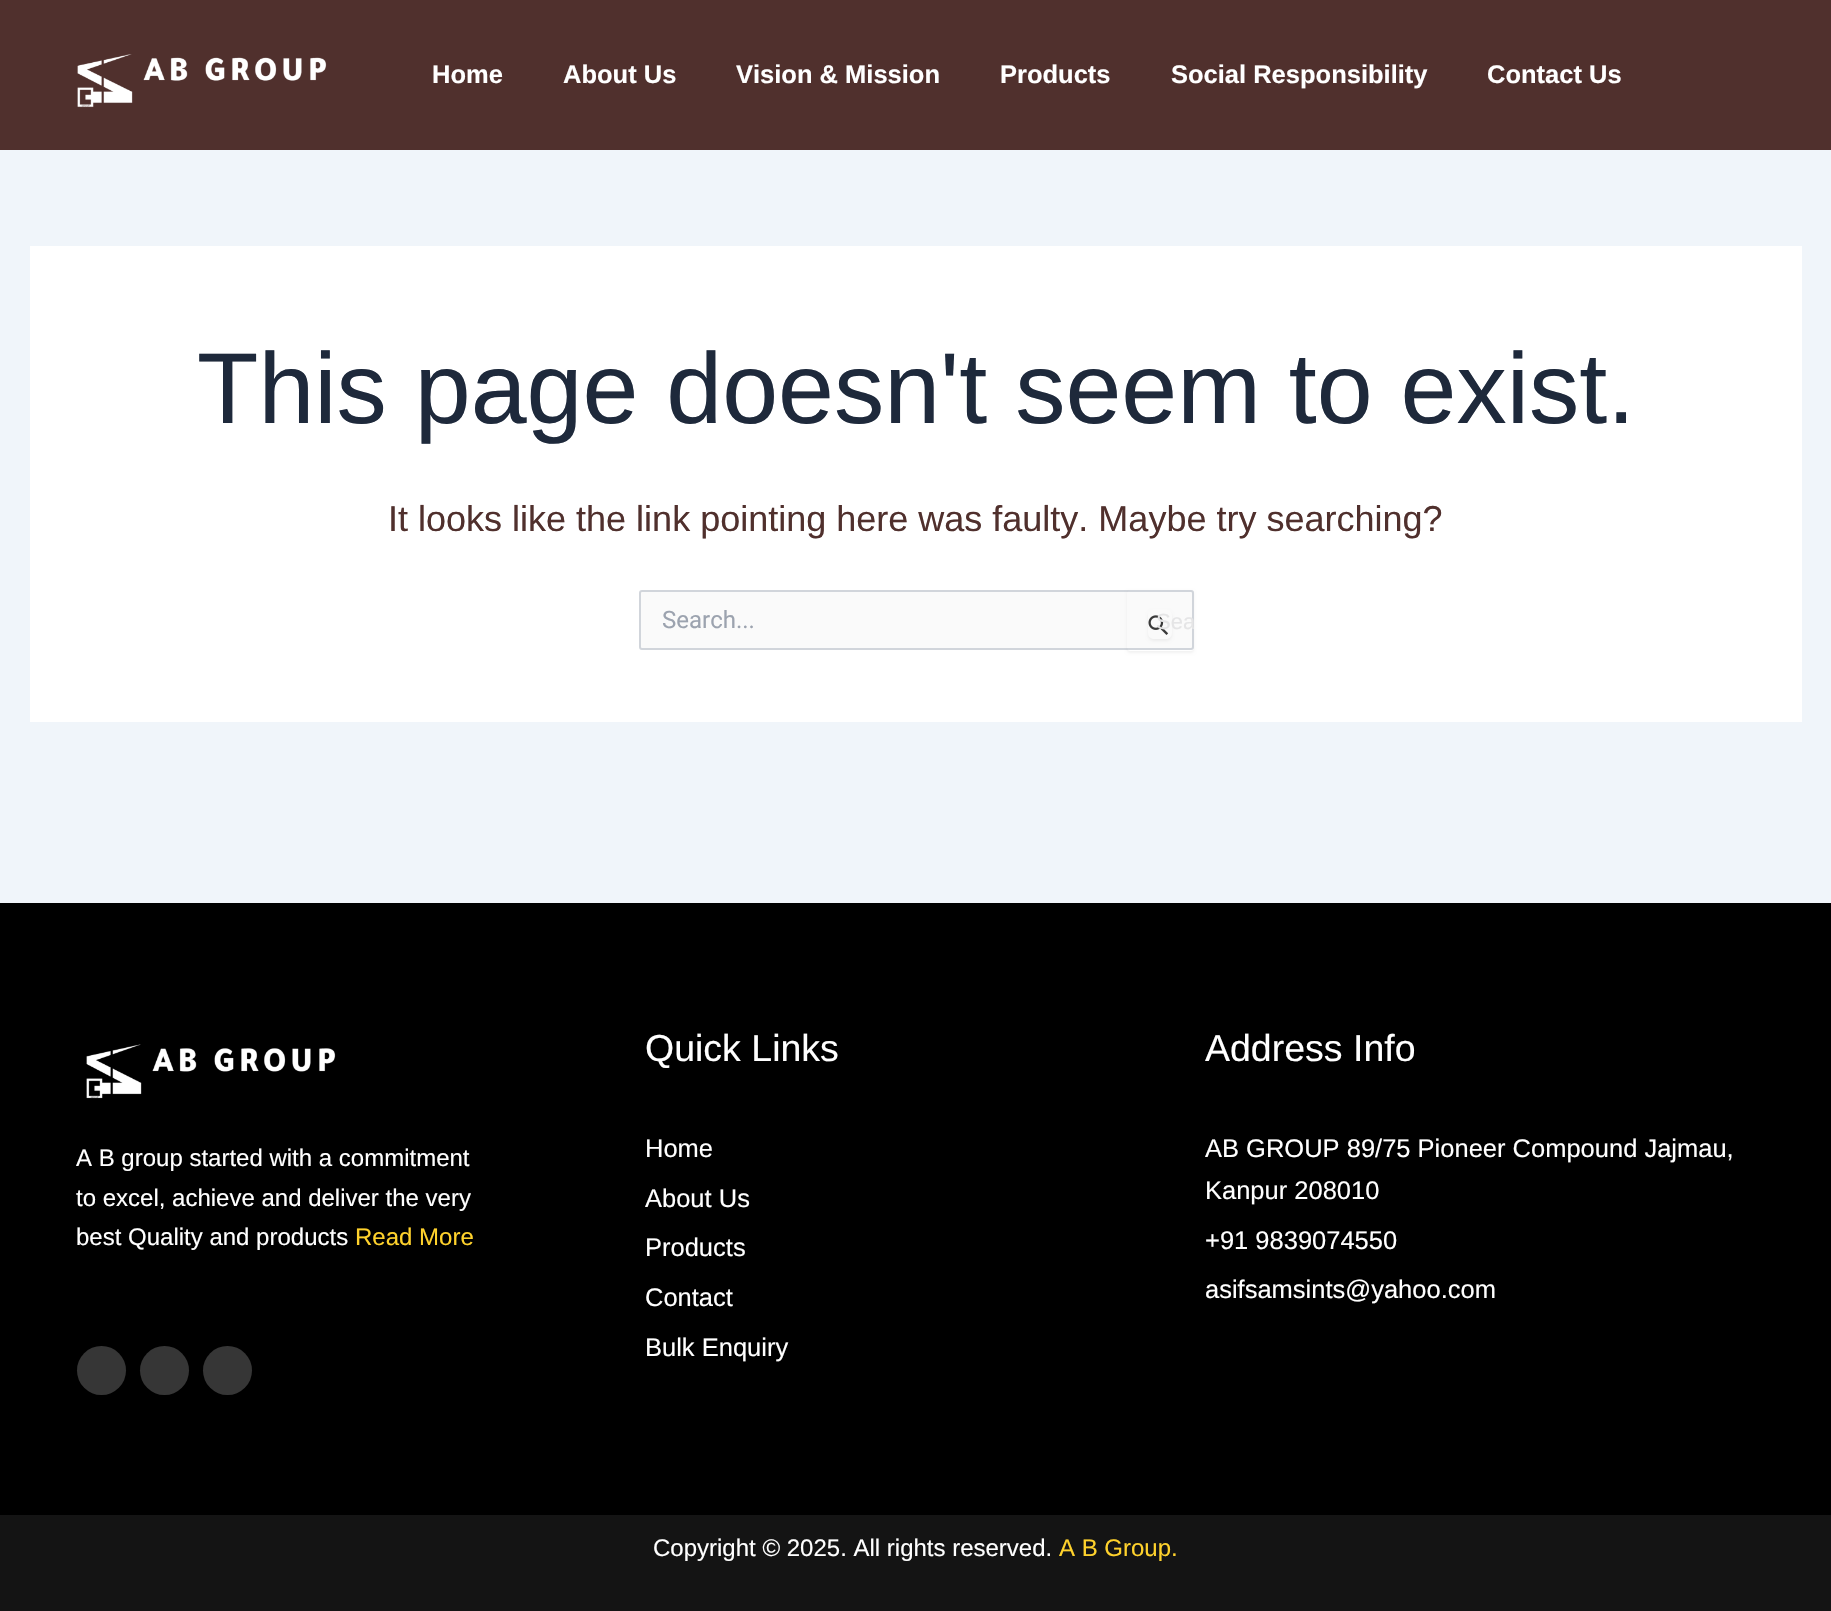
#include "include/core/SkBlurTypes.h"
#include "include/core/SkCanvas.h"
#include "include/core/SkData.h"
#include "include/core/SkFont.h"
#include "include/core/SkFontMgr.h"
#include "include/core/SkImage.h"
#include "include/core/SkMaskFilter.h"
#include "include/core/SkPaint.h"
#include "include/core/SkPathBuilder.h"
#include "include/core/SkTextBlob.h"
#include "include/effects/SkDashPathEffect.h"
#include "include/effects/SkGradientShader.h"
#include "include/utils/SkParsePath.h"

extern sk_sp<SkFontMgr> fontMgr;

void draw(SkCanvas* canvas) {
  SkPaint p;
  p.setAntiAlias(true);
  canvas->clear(SkColorSetRGB(240, 245, 250));
  p.setColor(SkColorSetRGB(80, 48, 45));
  canvas->drawRect(SkRect::MakeLTRB(0, 0, 1831, 150), p);
  canvas->drawImageRect(SkImages::DeferredFromEncodedData(SkData::MakeFromFileName("images/1.png")), SkRect::MakeLTRB(77, 54, 327, 108), SkSamplingOptions());
  p.setColor(SK_ColorWHITE);
  canvas->drawRect(SkRect::MakeLTRB(30, 246, 1802, 722), p);
  p.setColor(SkColorSetRGB(250, 250, 250));
  canvas->drawRoundRect(SkRect::MakeLTRB(640, 591, 1193, 649), 2, 2, p);
  p.setStyle(SkPaint::kStroke_Style);
  p.setStrokeWidth(2);
  p.setColor(SkColorSetRGB(209, 213, 219));
  canvas->drawRoundRect(SkRect::MakeLTRB(640, 591, 1193, 649), 2, 2, p);
  canvas->save();
  canvas->clipPath(SkPathBuilder(SkPathFillType::kEvenOdd).moveTo(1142, 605).lineTo(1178, 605).lineTo(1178, 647).lineTo(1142, 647).close().moveTo(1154, 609).lineTo(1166, 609).cubicTo(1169.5f, 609, 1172, 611.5f, 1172, 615).lineTo(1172, 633).cubicTo(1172, 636.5f, 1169.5f, 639, 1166, 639).lineTo(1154, 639).cubicTo(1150.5f, 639, 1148, 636.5f, 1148, 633).lineTo(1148, 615).cubicTo(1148, 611.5f, 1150.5f, 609, 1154, 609).close().detach(), true);
  p.setStyle(SkPaint::kFill_Style);
  p.setColor(SkColorSetARGB(13, 0, 0, 0));
  p.setMaskFilter(SkMaskFilter::MakeBlur(kNormal_SkBlurStyle, 1.5f));
  canvas->drawRoundRect(SkRect::MakeLTRB(1148, 611, 1172, 641), 6, 6, p);
  p.setMaskFilter(nullptr);
  canvas->restore();
  canvas->drawImageRect(SkImages::DeferredFromEncodedData(SkData::MakeFromFileName("images/2.png")), SkRect::MakeLTRB(1148, 615, 1169, 635), SkSamplingOptions());
  canvas->save();
  canvas->clipPath(SkPathBuilder(SkPathFillType::kEvenOdd).moveTo(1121, 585).lineTo(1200, 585).lineTo(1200, 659).lineTo(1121, 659).close().moveTo(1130, 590).lineTo(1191, 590).cubicTo(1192.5f, 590, 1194, 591.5f, 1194, 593).lineTo(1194, 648).cubicTo(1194, 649.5f, 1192.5f, 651, 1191, 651).lineTo(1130, 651).cubicTo(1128.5f, 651, 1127, 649.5f, 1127, 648).lineTo(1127, 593).cubicTo(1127, 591.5f, 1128.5f, 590, 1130, 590).close().detach(), true);
  p.setMaskFilter(SkMaskFilter::MakeBlur(kNormal_SkBlurStyle, 1.5f));
  canvas->drawRoundRect(SkRect::MakeLTRB(1127, 591, 1194, 653), 3, 3, p);
  p.setMaskFilter(nullptr);
  canvas->restore();
  p.setColor(SK_ColorBLACK);
  canvas->drawRect(SkRect::MakeLTRB(0, 903, 1831, 1515), p);
  canvas->drawImageRect(SkImages::DeferredFromEncodedData(SkData::MakeFromFileName("images/3.png")), SkRect::MakeLTRB(86, 1044, 336, 1099), SkSamplingOptions());
  p.setColor(SkColorSetRGB(54, 54, 54));
  canvas->drawCircle(101.5f, 1370.5f, 24.5f, p);
  canvas->drawCircle(164.5f, 1370.5f, 24.5f, p);
  canvas->drawCircle(227.5f, 1370.5f, 24.5f, p);
  p.setColor(SkColorSetRGB(20, 20, 20));
  canvas->drawRect(SkRect::MakeLTRB(0, 1515, 1831, 1611), p);
  SkFont font1(fontMgr->matchFamilyStyle("Liberation Sans", SkFontStyle::Bold()), 25.5f);
  font1.setSubpixel(true);
  p.setColor(SK_ColorWHITE);
  canvas->drawString("Home", 432, 83, font1, p);
  canvas->drawString("About Us", 563, 83, font1, p);
  canvas->drawString("Vision & Mission", 736, 83, font1, p);
  canvas->drawString("Products", 1000, 83, font1, p);
  canvas->drawString("Social Responsibility", 1171, 83, font1, p);
  canvas->drawString("Contact Us", 1487, 83, font1, p);
  SkFont font2(fontMgr->matchFamilyStyle("Liberation Sans", SkFontStyle::Normal()), 100.5f);
  font2.setSubpixel(true);
  p.setColor(SkColorSetRGB(30, 41, 59));
  canvas->drawString("This page doesn't seem to exist.", 197, 423, font2, p);
  SkFont font3(fontMgr->matchFamilyStyle("Liberation Sans", SkFontStyle::Normal()), 36);
  font3.setSubpixel(true);
  p.setColor(SkColorSetRGB(80, 48, 45));
  canvas->drawString("It looks like the link pointing here was faulty. Maybe try searching?", 388, 531, font3, p);
  SkFont font4(fontMgr->matchFamilyStyle("Roboto", SkFontStyle::Normal()), 24);
  font4.setSubpixel(true);
  p.setColor(SkColorSetRGB(156, 163, 175));
  canvas->drawString("Search...", 662, 628, font4, p);
  canvas->save();
  canvas->clipPath(SkPathBuilder().moveTo(1130, 590).lineTo(1191, 590).cubicTo(1192.5f, 590, 1194, 591.5f, 1194, 593).lineTo(1194, 648).cubicTo(1194, 649.5f, 1192.5f, 651, 1191, 651).lineTo(1130, 651).cubicTo(1128.5f, 651, 1127, 649.5f, 1127, 648).lineTo(1127, 593).cubicTo(1127, 591.5f, 1128.5f, 590, 1130, 590).close().detach(), true);
  SkFont font5(fontMgr->matchFamilyStyle("Liberation Sans", SkFontStyle::Normal()), 22);
  font5.setSubpixel(true);
  p.setColor(SkColorSetRGB(229, 229, 230));
  canvas->drawString("Sea", 1156, 629, font5, p);
  canvas->restore();
  SkFont font6(fontMgr->matchFamilyStyle("Liberation Sans", SkFontStyle::Normal()), 24);
  font6.setSubpixel(true);
  p.setColor(SK_ColorWHITE);
  canvas->drawString("A B group started with a commitment", 76, 1166, font6, p);
  canvas->drawString("to excel, achieve and deliver the very", 76, 1206, font6, p);
  canvas->drawString("best Quality and products", 76, 1245, font6, p);
  p.setColor(SkColorSetRGB(255, 210, 44));
  canvas->drawString("Read More", 355, 1245, font6, p);
  SkFont font7(fontMgr->matchFamilyStyle("Liberation Sans", SkFontStyle::Normal()), 37.5f);
  font7.setSubpixel(true);
  p.setColor(SK_ColorWHITE);
  canvas->drawString("Quick Links", 645, 1061, font7, p);
  SkFont font8(fontMgr->matchFamilyStyle("Liberation Sans", SkFontStyle::Normal()), 25.5f);
  font8.setSubpixel(true);
  canvas->drawString("Home", 645, 1157, font8, p);
  canvas->drawString("About Us", 645, 1207, font8, p);
  canvas->drawString("Products", 645, 1256, font8, p);
  canvas->drawString("Contact", 645, 1306, font8, p);
  canvas->drawString("Bulk Enquiry", 645, 1356, font8, p);
  canvas->drawString("Address Info", 1205, 1061, font7, p);
  canvas->drawString("AB GROUP 89/75 Pioneer Compound Jajmau,", 1205, 1157, font8, p);
  canvas->drawString("Kanpur 208010", 1205, 1199, font8, p);
  canvas->drawString("+91 9839074550", 1205, 1249, font8, p);
  canvas->drawString("asifsamsints@yahoo.com", 1205, 1298, font8, p);
  canvas->drawString("Copyright © 2025. All rights reserved.", 653, 1556, font6, p);
  p.setColor(SkColorSetRGB(255, 210, 44));
  canvas->drawString("A B Group.", 1059, 1556, font6, p);
}
